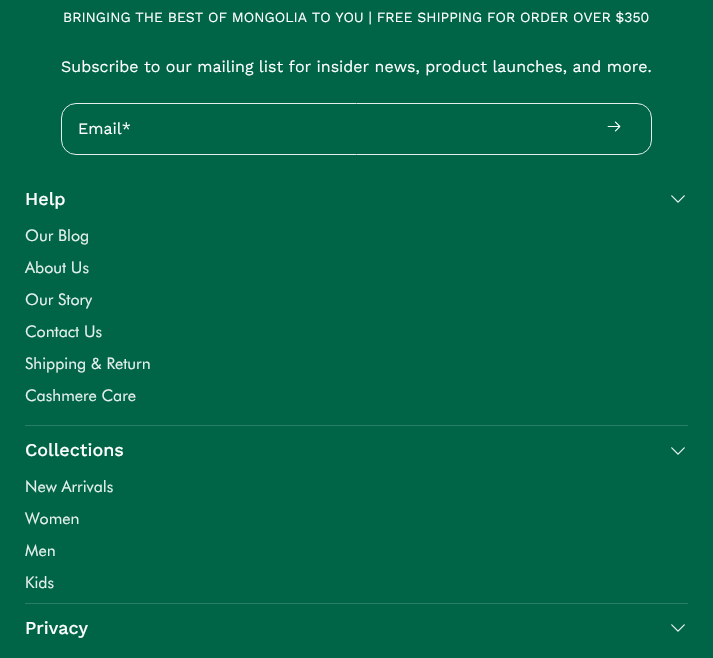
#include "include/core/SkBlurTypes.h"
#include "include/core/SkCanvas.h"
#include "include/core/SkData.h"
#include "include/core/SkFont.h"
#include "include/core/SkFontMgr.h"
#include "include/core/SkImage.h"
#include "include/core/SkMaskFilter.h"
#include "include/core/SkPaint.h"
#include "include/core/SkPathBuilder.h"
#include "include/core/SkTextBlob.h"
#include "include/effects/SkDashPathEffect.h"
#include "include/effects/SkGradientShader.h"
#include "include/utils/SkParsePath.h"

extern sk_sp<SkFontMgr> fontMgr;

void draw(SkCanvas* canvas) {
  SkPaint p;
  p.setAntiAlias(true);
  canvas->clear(SkColorSetRGB(0, 101, 70));
  p.setStyle(SkPaint::kStroke_Style);
  p.setStrokeWidth(1);
  p.setColor(SkColorSetRGB(229, 239, 236));
  canvas->drawRoundRect(SkRect::MakeLTRB(61.5f, 103.5f, 651.5f, 154.5f), 14.5f, 14.5f, p);
  canvas->drawImageRect(SkImages::DeferredFromEncodedData(SkData::MakeFromFileName("images/1.png")), SkRect::MakeLTRB(607, 121, 621, 132), SkSamplingOptions());
  p.setStyle(SkPaint::kFill_Style);
  p.setColor(SkColorSetRGB(43, 127, 101));
  canvas->drawRect(SkRect::MakeLTRB(25, 425, 688, 426), p);
  canvas->drawImageRect(SkImages::DeferredFromEncodedData(SkData::MakeFromFileName("images/2.png")), SkRect::MakeLTRB(671, 195, 685, 203), SkSamplingOptions());
  canvas->drawRect(SkRect::MakeLTRB(25, 603, 688, 604), p);
  canvas->drawImageRect(SkImages::DeferredFromEncodedData(SkData::MakeFromFileName("images/2.png")), SkRect::MakeLTRB(671, 447, 685, 455), SkSamplingOptions());
  canvas->drawImageRect(SkImages::DeferredFromEncodedData(SkData::MakeFromFileName("images/2.png")), SkRect::MakeLTRB(671, 624, 685, 632), SkSamplingOptions());
  SkFont font1(fontMgr->matchFamilyStyle("Work Sans", SkFontStyle::Normal()), 14);
  font1.setSubpixel(true);
  p.setColor(SK_ColorWHITE);
  canvas->drawString("BRINGING THE BEST OF MONGOLIA TO YOU | FREE SHIPPING FOR ORDER OVER $350", 63, 22, font1, p);
  SkFont font2(fontMgr->matchFamilyStyle("Work Sans", SkFontStyle::Normal()), 16);
  font2.setSubpixel(true);
  canvas->drawString("Subscribe to our mailing list for insider news, product launches, and more.", 61, 72, font2, p);
  canvas->drawString("Email*", 78, 134, font2, p);
  SkFont font3(fontMgr->matchFamilyStyle("Work Sans", SkFontStyle(500, SkFontStyle::kNormal_Width, SkFontStyle::kUpright_Slant)), 18);
  font3.setSubpixel(true);
  canvas->drawString("Help", 25, 205, font3, p);
  SkFont font4(fontMgr->matchFamilyStyle("Futura", SkFontStyle::Normal()), 16);
  font4.setSubpixel(true);
  p.setColor(SkColorSetRGB(230, 240, 237));
  canvas->drawString("Our Blog", 25, 241, font4, p);
  canvas->drawString("About Us", 25, 273, font4, p);
  canvas->drawString("Our Story", 25, 305, font4, p);
  canvas->drawString("Contact Us", 25, 337, font4, p);
  canvas->drawString("Shipping & Return", 25, 369, font4, p);
  canvas->drawString("Cashmere Care", 25, 401, font4, p);
  p.setColor(SK_ColorWHITE);
  canvas->drawString("Collections", 25, 456, font3, p);
  p.setColor(SkColorSetRGB(230, 240, 237));
  canvas->drawString("New Arrivals", 25, 492, font4, p);
  canvas->drawString("Women", 25, 524, font4, p);
  canvas->drawString("Men", 25, 556, font4, p);
  canvas->drawString("Kids", 25, 588, font4, p);
  p.setColor(SK_ColorWHITE);
  canvas->drawString("Privacy", 25, 634, font3, p);
}
